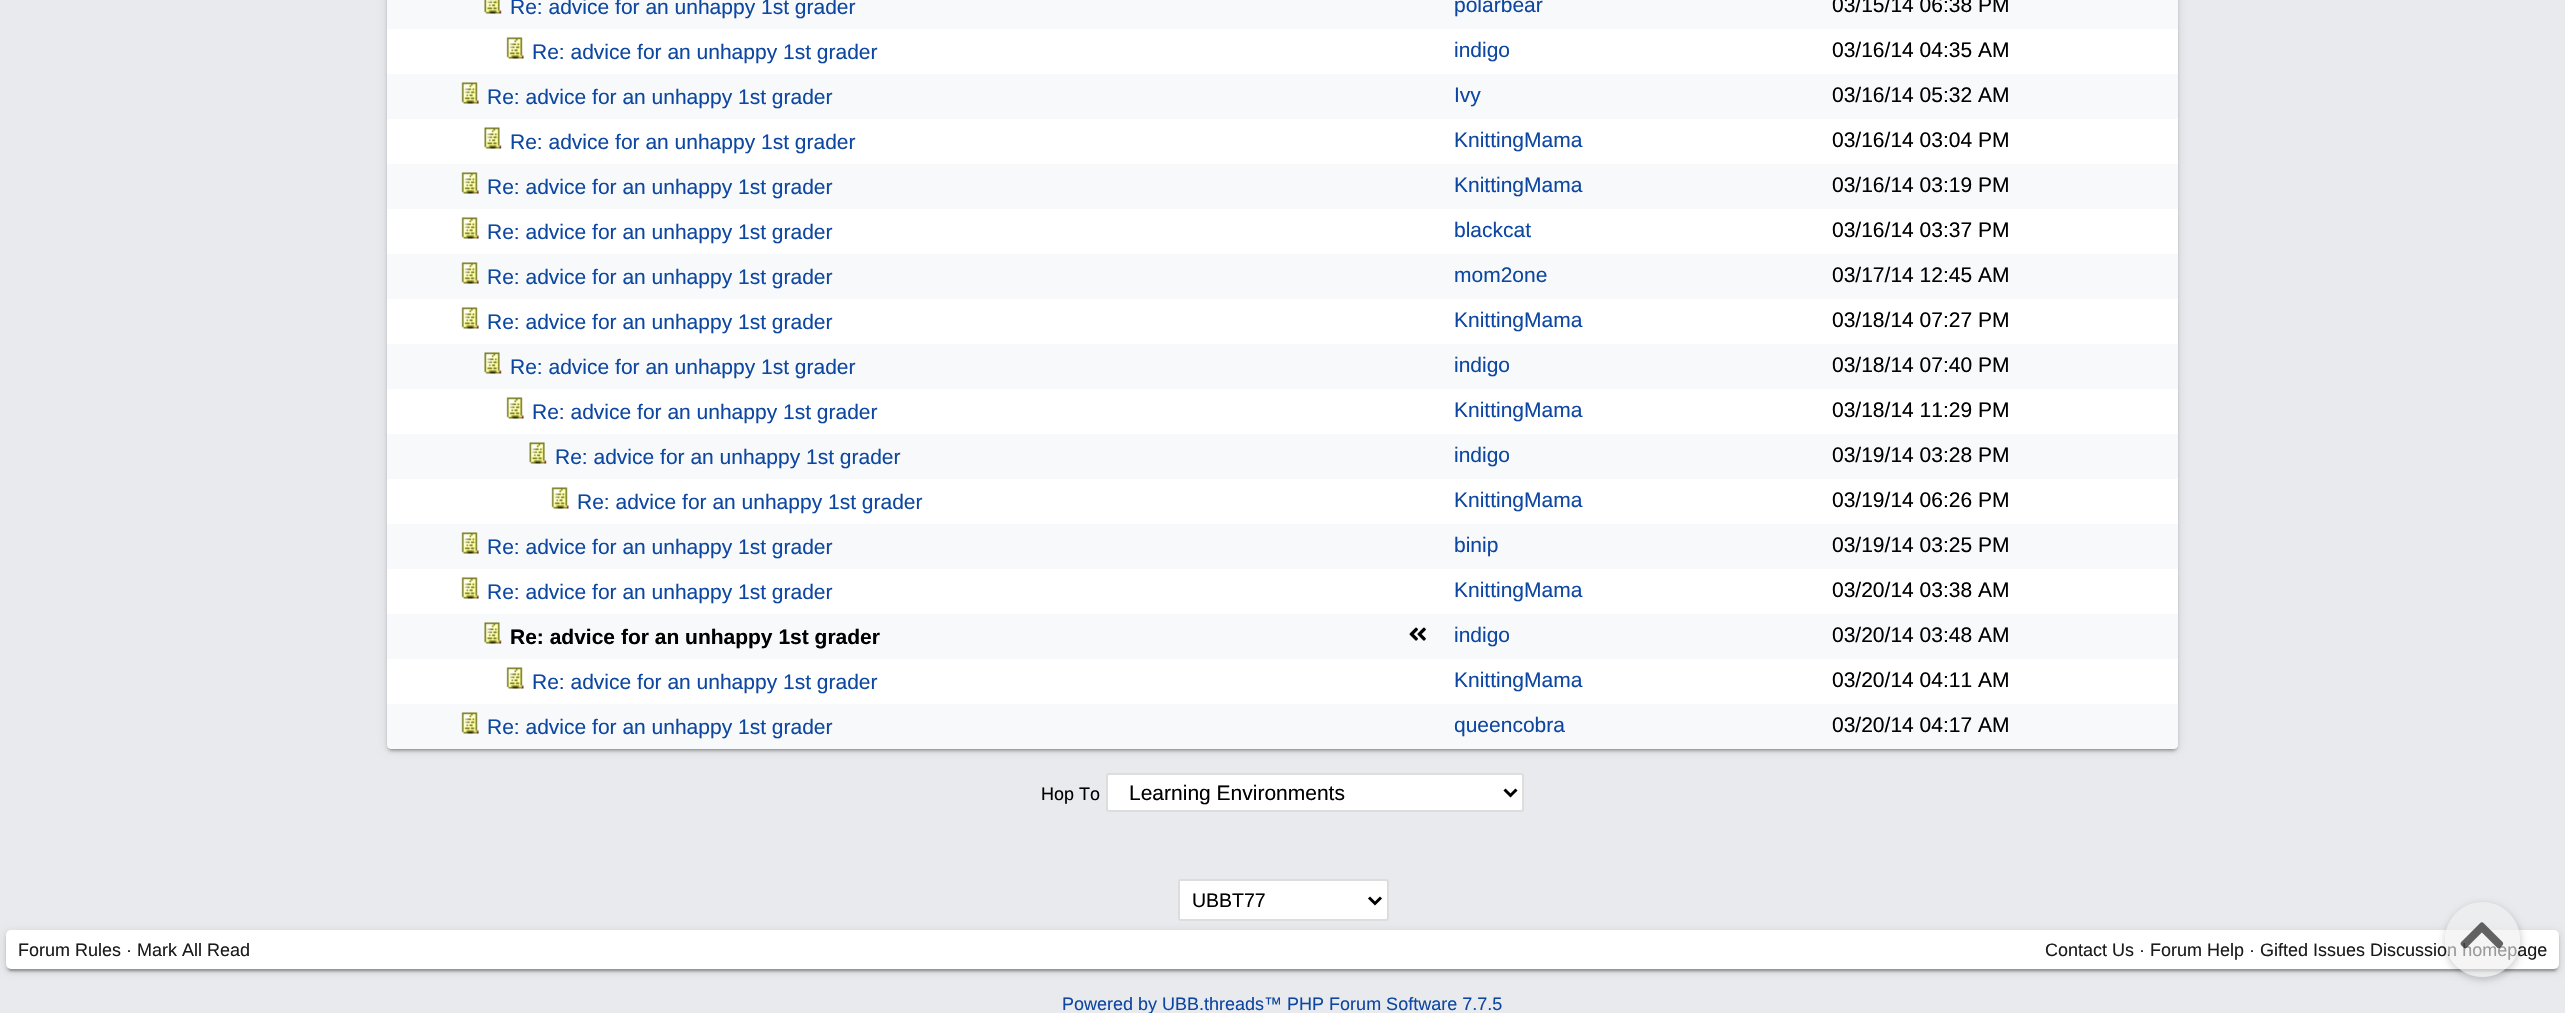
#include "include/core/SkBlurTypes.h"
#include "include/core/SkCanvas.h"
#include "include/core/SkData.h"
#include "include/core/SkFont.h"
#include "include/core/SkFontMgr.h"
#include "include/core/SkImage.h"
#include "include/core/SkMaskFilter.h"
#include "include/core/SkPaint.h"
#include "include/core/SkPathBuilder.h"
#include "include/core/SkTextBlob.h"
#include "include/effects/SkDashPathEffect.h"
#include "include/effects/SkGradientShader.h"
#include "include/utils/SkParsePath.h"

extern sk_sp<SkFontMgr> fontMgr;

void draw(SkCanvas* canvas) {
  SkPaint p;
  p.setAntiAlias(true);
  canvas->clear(SkColorSetRGB(232, 234, 237));
  p.setColor(SkColorSetARGB(51, 0, 0, 0));
  p.setMaskFilter(SkMaskFilter::MakeBlur(kNormal_SkBlurStyle, 1));
  canvas->drawRoundRect(SkRect::MakeLTRB(390, -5, 2175, 750), 1.5f, 1.5f, p);
  p.setMaskFilter(nullptr);
  p.setColor(SkColorSetARGB(31, 0, 0, 0));
  p.setMaskFilter(SkMaskFilter::MakeBlur(kNormal_SkBlurStyle, 4));
  canvas->drawRoundRect(SkRect::MakeLTRB(387, -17, 2178, 750), 5, 5, p);
  p.setMaskFilter(nullptr);
  p.setColor(SkColorSetARGB(36, 0, 0, 0));
  p.setMaskFilter(SkMaskFilter::MakeBlur(kNormal_SkBlurStyle, 1.5f));
  canvas->drawRoundRect(SkRect::MakeLTRB(387, -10, 2178, 752), 5, 5, p);
  p.setMaskFilter(nullptr);
  p.setColor(SK_ColorWHITE);
  canvas->drawRoundRect(SkRect::MakeLTRB(387, -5, 2178, 749), 5, 5, p);
  p.setColor(SkColorSetRGB(247, 249, 250));
  canvas->drawRect(SkRect::MakeLTRB(387, 0, 2178, 29), p);
  canvas->drawImageRect(SkImages::DeferredFromEncodedData(SkData::MakeFromFileName("images/1.png")), SkRect::MakeLTRB(484, 0, 502, 14), SkSamplingOptions());
  canvas->drawImageRect(SkImages::DeferredFromEncodedData(SkData::MakeFromFileName("images/2.png")), SkRect::MakeLTRB(506, 37, 524, 59), SkSamplingOptions());
  canvas->drawRect(SkRect::MakeLTRB(387, 74, 2178, 119), p);
  canvas->drawImageRect(SkImages::DeferredFromEncodedData(SkData::MakeFromFileName("images/3.png")), SkRect::MakeLTRB(461, 82, 479, 104), SkSamplingOptions());
  canvas->drawImageRect(SkImages::DeferredFromEncodedData(SkData::MakeFromFileName("images/4.png")), SkRect::MakeLTRB(484, 127, 502, 149), SkSamplingOptions());
  canvas->drawRect(SkRect::MakeLTRB(387, 164, 2178, 209), p);
  canvas->drawImageRect(SkImages::DeferredFromEncodedData(SkData::MakeFromFileName("images/3.png")), SkRect::MakeLTRB(461, 172, 479, 194), SkSamplingOptions());
  canvas->drawImageRect(SkImages::DeferredFromEncodedData(SkData::MakeFromFileName("images/5.png")), SkRect::MakeLTRB(461, 217, 479, 239), SkSamplingOptions());
  canvas->drawRect(SkRect::MakeLTRB(387, 254, 2178, 299), p);
  canvas->drawImageRect(SkImages::DeferredFromEncodedData(SkData::MakeFromFileName("images/3.png")), SkRect::MakeLTRB(461, 262, 479, 284), SkSamplingOptions());
  canvas->drawImageRect(SkImages::DeferredFromEncodedData(SkData::MakeFromFileName("images/5.png")), SkRect::MakeLTRB(461, 307, 479, 329), SkSamplingOptions());
  canvas->drawRect(SkRect::MakeLTRB(387, 344, 2178, 389), p);
  canvas->drawImageRect(SkImages::DeferredFromEncodedData(SkData::MakeFromFileName("images/6.png")), SkRect::MakeLTRB(484, 352, 502, 374), SkSamplingOptions());
  canvas->drawImageRect(SkImages::DeferredFromEncodedData(SkData::MakeFromFileName("images/2.png")), SkRect::MakeLTRB(506, 397, 524, 419), SkSamplingOptions());
  canvas->drawRect(SkRect::MakeLTRB(387, 434, 2178, 479), p);
  canvas->drawImageRect(SkImages::DeferredFromEncodedData(SkData::MakeFromFileName("images/7.png")), SkRect::MakeLTRB(529, 442, 547, 464), SkSamplingOptions());
  canvas->drawImageRect(SkImages::DeferredFromEncodedData(SkData::MakeFromFileName("images/8.png")), SkRect::MakeLTRB(551, 487, 569, 509), SkSamplingOptions());
  canvas->drawRect(SkRect::MakeLTRB(387, 524, 2178, 569), p);
  canvas->drawImageRect(SkImages::DeferredFromEncodedData(SkData::MakeFromFileName("images/3.png")), SkRect::MakeLTRB(461, 532, 479, 554), SkSamplingOptions());
  canvas->drawImageRect(SkImages::DeferredFromEncodedData(SkData::MakeFromFileName("images/5.png")), SkRect::MakeLTRB(461, 577, 479, 599), SkSamplingOptions());
  canvas->drawRect(SkRect::MakeLTRB(387, 614, 2178, 659), p);
  canvas->drawImageRect(SkImages::DeferredFromEncodedData(SkData::MakeFromFileName("images/6.png")), SkRect::MakeLTRB(484, 622, 502, 644), SkSamplingOptions());
  canvas->drawImageRect(SkImages::DeferredFromEncodedData(SkData::MakeFromFileName("images/9.png")), SkRect::MakeLTRB(1409, 627, 1426, 641), SkSamplingOptions());
  canvas->drawImageRect(SkImages::DeferredFromEncodedData(SkData::MakeFromFileName("images/2.png")), SkRect::MakeLTRB(506, 667, 524, 689), SkSamplingOptions());
  canvas->drawPath(SkPathBuilder().moveTo(387, 704).lineTo(1443, 704).lineTo(1443, 749).lineTo(392, 749).cubicTo(389, 749, 387, 747, 387, 744).close().detach(), p);
  canvas->drawImageRect(SkImages::DeferredFromEncodedData(SkData::MakeFromFileName("images/3.png")), SkRect::MakeLTRB(461, 712, 479, 734), SkSamplingOptions());
  canvas->drawRect(SkRect::MakeLTRB(1443, 704, 1820, 749), p);
  canvas->drawPath(SkPathBuilder().moveTo(1820, 704).lineTo(2178, 704).lineTo(2178, 744).cubicTo(2178, 747, 2176, 749, 2173, 749).lineTo(1820, 749).close().detach(), p);
  p.setColor(SK_ColorWHITE);
  canvas->drawRoundRect(SkRect::MakeLTRB(1107, 774, 1523, 811), 2, 2, p);
  p.setStyle(SkPaint::kStroke_Style);
  p.setStrokeWidth(2);
  p.setColor(SkColorSetRGB(221, 221, 221));
  canvas->drawRoundRect(SkRect::MakeLTRB(1107, 774, 1523, 811), 2, 2, p);
  p.setStrokeWidth(3);
  p.setColor(SK_ColorBLACK);
  canvas->drawPath(SkPathBuilder().moveTo(1504.5f, 789.5f).lineTo(1510.5f, 795.5f).lineTo(1516.5f, 789.5f).detach(), p);
  p.setStyle(SkPaint::kFill_Style);
  p.setColor(SK_ColorWHITE);
  canvas->drawRoundRect(SkRect::MakeLTRB(1179, 880, 1388, 920), 2, 2, p);
  p.setStyle(SkPaint::kStroke_Style);
  p.setStrokeWidth(2);
  p.setColor(SkColorSetRGB(221, 221, 221));
  canvas->drawRoundRect(SkRect::MakeLTRB(1179, 880, 1388, 920), 2, 2, p);
  p.setStrokeWidth(3);
  p.setColor(SK_ColorBLACK);
  canvas->drawPath(SkPathBuilder().moveTo(1369, 897.5f).lineTo(1375, 903.5f).lineTo(1381, 897.5f).detach(), p);
  p.setStyle(SkPaint::kFill_Style);
  p.setColor(SkColorSetARGB(51, 0, 0, 0));
  p.setMaskFilter(SkMaskFilter::MakeBlur(kNormal_SkBlurStyle, 1));
  canvas->drawRoundRect(SkRect::MakeLTRB(9, 938, 2556, 971), 1.5f, 1.5f, p);
  p.setMaskFilter(nullptr);
  p.setColor(SkColorSetARGB(31, 0, 0, 0));
  p.setMaskFilter(SkMaskFilter::MakeBlur(kNormal_SkBlurStyle, 4));
  canvas->drawRoundRect(SkRect::MakeLTRB(6, 932, 2559, 971), 5, 5, p);
  p.setMaskFilter(nullptr);
  p.setColor(SkColorSetARGB(36, 0, 0, 0));
  p.setMaskFilter(SkMaskFilter::MakeBlur(kNormal_SkBlurStyle, 1.5f));
  canvas->drawRoundRect(SkRect::MakeLTRB(6, 933, 2559, 972), 5, 5, p);
  p.setMaskFilter(nullptr);
  p.setColor(SK_ColorWHITE);
  canvas->drawRoundRect(SkRect::MakeLTRB(6, 930, 2559, 969), 5, 5, p);
  canvas->save();
  canvas->clipPath(SkPathBuilder(SkPathFillType::kEvenOdd).moveTo(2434, 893).lineTo(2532, 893).lineTo(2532, 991).lineTo(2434, 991).close().moveTo(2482.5f, 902).cubicTo(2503, 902, 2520, 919, 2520, 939.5f).cubicTo(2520, 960, 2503, 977, 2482.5f, 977).cubicTo(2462, 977, 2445, 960, 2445, 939.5f).cubicTo(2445, 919, 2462, 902, 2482.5f, 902).close().detach(), true);
  p.setColor(SkColorSetARGB(38, 0, 0, 0));
  p.setMaskFilter(SkMaskFilter::MakeBlur(kNormal_SkBlurStyle, 3));
  canvas->drawRoundRect(SkRect::MakeLTRB(2444, 903, 2522, 981), 39, 39, p);
  p.setMaskFilter(nullptr);
  canvas->restore();
  SkFont font1(fontMgr->matchFamilyStyle("Liberation Sans", SkFontStyle::Normal()), 21);
  font1.setSubpixel(true);
  p.setColor(SkColorSetRGB(13, 71, 161));
  canvas->drawString("Re: advice for an unhappy 1st grader", 510, 14, font1, p);
  canvas->drawString("polarbear", 1454, 12, font1, p);
  p.setColor(SK_ColorBLACK);
  canvas->drawString("03/15/14 06:38 PM", 1832, 12, font1, p);
  p.setColor(SkColorSetRGB(13, 71, 161));
  canvas->drawString("Re: advice for an unhappy 1st grader", 532, 59, font1, p);
  canvas->drawString("indigo", 1454, 57, font1, p);
  p.setColor(SK_ColorBLACK);
  canvas->drawString("03/16/14 04:35 AM", 1832, 57, font1, p);
  p.setColor(SkColorSetRGB(13, 71, 161));
  canvas->drawString("Re: advice for an unhappy 1st grader", 487, 104, font1, p);
  canvas->drawString("Ivy", 1454, 102, font1, p);
  p.setColor(SK_ColorBLACK);
  canvas->drawString("03/16/14 05:32 AM", 1832, 102, font1, p);
  p.setColor(SkColorSetRGB(13, 71, 161));
  canvas->drawString("Re: advice for an unhappy 1st grader", 510, 149, font1, p);
  canvas->drawString("KnittingMama", 1454, 147, font1, p);
  p.setColor(SK_ColorBLACK);
  canvas->drawString("03/16/14 03:04 PM", 1832, 147, font1, p);
  p.setColor(SkColorSetRGB(13, 71, 161));
  canvas->drawString("Re: advice for an unhappy 1st grader", 487, 194, font1, p);
  canvas->drawString("KnittingMama", 1454, 192, font1, p);
  p.setColor(SK_ColorBLACK);
  canvas->drawString("03/16/14 03:19 PM", 1832, 192, font1, p);
  p.setColor(SkColorSetRGB(13, 71, 161));
  canvas->drawString("Re: advice for an unhappy 1st grader", 487, 239, font1, p);
  canvas->drawString("blackcat", 1454, 237, font1, p);
  p.setColor(SK_ColorBLACK);
  canvas->drawString("03/16/14 03:37 PM", 1832, 237, font1, p);
  p.setColor(SkColorSetRGB(13, 71, 161));
  canvas->drawString("Re: advice for an unhappy 1st grader", 487, 284, font1, p);
  canvas->drawString("mom2one", 1454, 282, font1, p);
  p.setColor(SK_ColorBLACK);
  canvas->drawString("03/17/14 12:45 AM", 1832, 282, font1, p);
  p.setColor(SkColorSetRGB(13, 71, 161));
  canvas->drawString("Re: advice for an unhappy 1st grader", 487, 329, font1, p);
  canvas->drawString("KnittingMama", 1454, 327, font1, p);
  p.setColor(SK_ColorBLACK);
  canvas->drawString("03/18/14 07:27 PM", 1832, 327, font1, p);
  p.setColor(SkColorSetRGB(13, 71, 161));
  canvas->drawString("Re: advice for an unhappy 1st grader", 510, 374, font1, p);
  canvas->drawString("indigo", 1454, 372, font1, p);
  p.setColor(SK_ColorBLACK);
  canvas->drawString("03/18/14 07:40 PM", 1832, 372, font1, p);
  p.setColor(SkColorSetRGB(13, 71, 161));
  canvas->drawString("Re: advice for an unhappy 1st grader", 532, 419, font1, p);
  canvas->drawString("KnittingMama", 1454, 417, font1, p);
  p.setColor(SK_ColorBLACK);
  canvas->drawString("03/18/14 11:29 PM", 1832, 417, font1, p);
  p.setColor(SkColorSetRGB(13, 71, 161));
  canvas->drawString("Re: advice for an unhappy 1st grader", 555, 464, font1, p);
  canvas->drawString("indigo", 1454, 462, font1, p);
  p.setColor(SK_ColorBLACK);
  canvas->drawString("03/19/14 03:28 PM", 1832, 462, font1, p);
  p.setColor(SkColorSetRGB(13, 71, 161));
  canvas->drawString("Re: advice for an unhappy 1st grader", 577, 509, font1, p);
  canvas->drawString("KnittingMama", 1454, 507, font1, p);
  p.setColor(SK_ColorBLACK);
  canvas->drawString("03/19/14 06:26 PM", 1832, 507, font1, p);
  p.setColor(SkColorSetRGB(13, 71, 161));
  canvas->drawString("Re: advice for an unhappy 1st grader", 487, 554, font1, p);
  canvas->drawString("binip", 1454, 552, font1, p);
  p.setColor(SK_ColorBLACK);
  canvas->drawString("03/19/14 03:25 PM", 1832, 552, font1, p);
  p.setColor(SkColorSetRGB(13, 71, 161));
  canvas->drawString("Re: advice for an unhappy 1st grader", 487, 599, font1, p);
  canvas->drawString("KnittingMama", 1454, 597, font1, p);
  p.setColor(SK_ColorBLACK);
  canvas->drawString("03/20/14 03:38 AM", 1832, 597, font1, p);
  SkFont font2(fontMgr->matchFamilyStyle("Liberation Sans", SkFontStyle::Bold()), 21);
  font2.setSubpixel(true);
  canvas->drawString("Re: advice for an unhappy 1st grader", 510, 644, font2, p);
  p.setColor(SkColorSetRGB(13, 71, 161));
  canvas->drawString("indigo", 1454, 642, font1, p);
  p.setColor(SK_ColorBLACK);
  canvas->drawString("03/20/14 03:48 AM", 1832, 642, font1, p);
  p.setColor(SkColorSetRGB(13, 71, 161));
  canvas->drawString("Re: advice for an unhappy 1st grader", 532, 689, font1, p);
  canvas->drawString("KnittingMama", 1454, 687, font1, p);
  p.setColor(SK_ColorBLACK);
  canvas->drawString("03/20/14 04:11 AM", 1832, 687, font1, p);
  p.setColor(SkColorSetRGB(13, 71, 161));
  canvas->drawString("Re: advice for an unhappy 1st grader", 487, 734, font1, p);
  canvas->drawString("queencobra", 1454, 732, font1, p);
  p.setColor(SK_ColorBLACK);
  canvas->drawString("03/20/14 04:17 AM", 1832, 732, font1, p);
  SkFont font3(fontMgr->matchFamilyStyle("Liberation Sans", SkFontStyle::Normal()), 18);
  font3.setSubpixel(true);
  canvas->drawString("Hop To", 1041, 800, font3, p);
  canvas->drawString("Learning Environments", 1129, 800, font1, p);
  SkFont font4(fontMgr->matchFamilyStyle("Liberation Sans", SkFontStyle::Normal()), 19.5f);
  font4.setSubpixel(true);
  canvas->drawString("UBBT77", 1192, 907, font4, p);
  p.setColor(SkColorSetRGB(27, 27, 27));
  canvas->drawString("Forum Rules · Mark All Read", 18, 956, font3, p);
  canvas->drawString("Contact Us · Forum Help · Gifted Issues Discussion homepage", 2045, 956, font3, p);
  p.setColor(SkColorSetARGB(153, 238, 238, 238));
  canvas->drawCircle(2482.5f, 939.5f, 37.5f, p);
  canvas->drawImageRect(SkImages::DeferredFromEncodedData(SkData::MakeFromFileName("images/10.png")), SkRect::MakeLTRB(2460, 922, 2504, 949), SkSamplingOptions());
  p.setColor(SkColorSetRGB(13, 71, 161));
  canvas->drawString("Powered by UBB.threads™ PHP Forum Software 7.7.5", 1062, 1010, font3, p);
}
